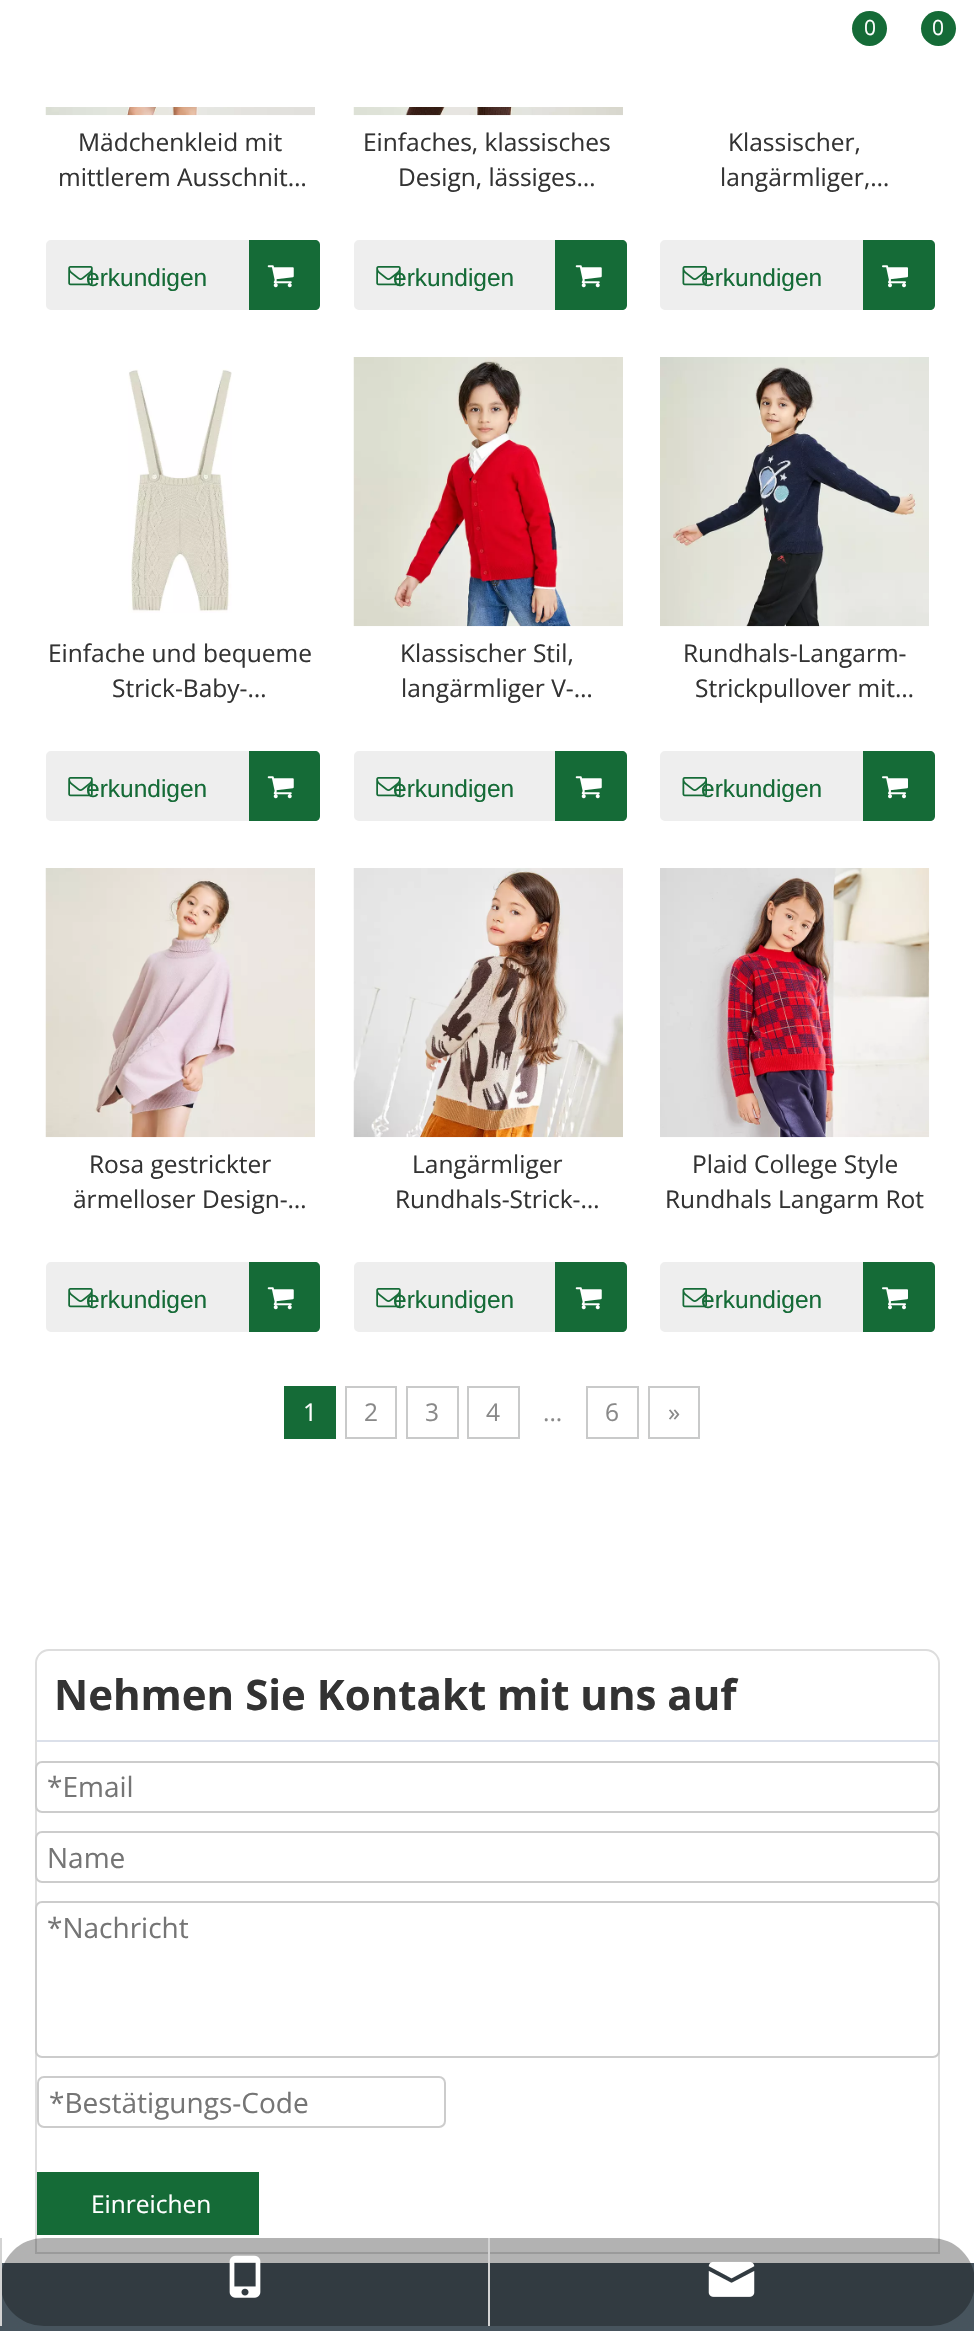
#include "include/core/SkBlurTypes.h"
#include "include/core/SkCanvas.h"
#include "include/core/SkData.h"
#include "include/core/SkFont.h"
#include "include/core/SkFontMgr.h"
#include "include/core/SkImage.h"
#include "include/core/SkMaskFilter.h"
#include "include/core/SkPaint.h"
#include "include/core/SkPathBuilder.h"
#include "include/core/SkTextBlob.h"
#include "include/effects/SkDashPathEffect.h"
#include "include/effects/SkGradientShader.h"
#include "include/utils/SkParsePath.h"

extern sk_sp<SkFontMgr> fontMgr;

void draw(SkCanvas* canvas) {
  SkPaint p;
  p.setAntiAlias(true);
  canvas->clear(SK_ColorWHITE);
  p.setColor(SkColorSetRGB(21, 107, 55));
  canvas->drawCircle(869.5f, 28.5f, 17.5f, p);
  canvas->drawCircle(938.5f, 28.5f, 17.5f, p);
  canvas->drawImageRect(SkImages::DeferredFromEncodedData(SkData::MakeFromFileName("images/1.png")), SkRect::MakeLTRB(45, 107, 315, 116), SkSamplingOptions());
  p.setColor(SkColorSetRGB(238, 238, 238));
  canvas->drawRoundRect(SkRect::MakeLTRB(47, 241, 318, 309), 4, 4, p);
  p.setStyle(SkPaint::kStroke_Style);
  p.setStrokeWidth(2);
  canvas->drawRoundRect(SkRect::MakeLTRB(47, 241, 318, 309), 4, 4, p);
  p.setStyle(SkPaint::kFill_Style);
  p.setColor(SkColorSetRGB(21, 107, 55));
  canvas->drawPath(SkPathBuilder().moveTo(249, 240).lineTo(315, 240).cubicTo(318, 240, 320, 242, 320, 245).lineTo(320, 305).cubicTo(320, 308, 318, 310, 315, 310).lineTo(249, 310).close().detach(), p);
  canvas->drawImageRect(SkImages::DeferredFromEncodedData(SkData::MakeFromFileName("images/3.png")), SkRect::MakeLTRB(267, 265, 294, 288), SkSamplingOptions());
  canvas->drawImageRect(SkImages::DeferredFromEncodedData(SkData::MakeFromFileName("images/4.png")), SkRect::MakeLTRB(353, 107, 623, 116), SkSamplingOptions());
  p.setColor(SkColorSetRGB(238, 238, 238));
  canvas->drawRoundRect(SkRect::MakeLTRB(355, 241, 624, 309), 4, 4, p);
  p.setStyle(SkPaint::kStroke_Style);
  canvas->drawRoundRect(SkRect::MakeLTRB(355, 241, 624, 309), 4, 4, p);
  p.setStyle(SkPaint::kFill_Style);
  p.setColor(SkColorSetRGB(21, 107, 55));
  canvas->drawPath(SkPathBuilder().moveTo(555, 240).lineTo(622, 240).cubicTo(625, 240, 627, 242, 627, 245).lineTo(627, 305).cubicTo(627, 308, 625, 310, 622, 310).lineTo(555, 310).close().detach(), p);
  canvas->drawImageRect(SkImages::DeferredFromEncodedData(SkData::MakeFromFileName("images/3.png")), SkRect::MakeLTRB(575, 265, 602, 288), SkSamplingOptions());
  p.setColor(SkColorSetRGB(238, 238, 238));
  canvas->drawRoundRect(SkRect::MakeLTRB(661, 241, 932, 309), 4, 4, p);
  p.setStyle(SkPaint::kStroke_Style);
  canvas->drawRoundRect(SkRect::MakeLTRB(661, 241, 932, 309), 4, 4, p);
  p.setStyle(SkPaint::kFill_Style);
  p.setColor(SkColorSetRGB(21, 107, 55));
  canvas->drawPath(SkPathBuilder().moveTo(863, 240).lineTo(930, 240).cubicTo(933, 240, 935, 242, 935, 245).lineTo(935, 305).cubicTo(935, 308, 933, 310, 930, 310).lineTo(863, 310).close().detach(), p);
  canvas->drawImageRect(SkImages::DeferredFromEncodedData(SkData::MakeFromFileName("images/7.png")), SkRect::MakeLTRB(882, 265, 908, 288), SkSamplingOptions());
  canvas->drawImageRect(SkImages::DeferredFromEncodedData(SkData::MakeFromFileName("images/8.png")), SkRect::MakeLTRB(128, 369, 232, 613), SkSamplingOptions());
  p.setColor(SkColorSetRGB(238, 238, 238));
  canvas->drawRoundRect(SkRect::MakeLTRB(47, 752, 318, 820), 4, 4, p);
  p.setStyle(SkPaint::kStroke_Style);
  canvas->drawRoundRect(SkRect::MakeLTRB(47, 752, 318, 820), 4, 4, p);
  p.setStyle(SkPaint::kFill_Style);
  p.setColor(SkColorSetRGB(21, 107, 55));
  canvas->drawPath(SkPathBuilder().moveTo(249, 751).lineTo(315, 751).cubicTo(318, 751, 320, 753, 320, 756).lineTo(320, 816).cubicTo(320, 819, 318, 821, 315, 821).lineTo(249, 821).close().detach(), p);
  canvas->drawImageRect(SkImages::DeferredFromEncodedData(SkData::MakeFromFileName("images/3.png")), SkRect::MakeLTRB(267, 776, 294, 799), SkSamplingOptions());
  canvas->drawImageRect(SkImages::DeferredFromEncodedData(SkData::MakeFromFileName("images/9.png")), SkRect::MakeLTRB(353, 357, 623, 627), SkSamplingOptions());
  p.setColor(SkColorSetRGB(238, 238, 238));
  canvas->drawRoundRect(SkRect::MakeLTRB(355, 752, 624, 820), 4, 4, p);
  p.setStyle(SkPaint::kStroke_Style);
  canvas->drawRoundRect(SkRect::MakeLTRB(355, 752, 624, 820), 4, 4, p);
  p.setStyle(SkPaint::kFill_Style);
  p.setColor(SkColorSetRGB(21, 107, 55));
  canvas->drawPath(SkPathBuilder().moveTo(555, 751).lineTo(622, 751).cubicTo(625, 751, 627, 753, 627, 756).lineTo(627, 816).cubicTo(627, 819, 625, 821, 622, 821).lineTo(555, 821).close().detach(), p);
  canvas->drawImageRect(SkImages::DeferredFromEncodedData(SkData::MakeFromFileName("images/3.png")), SkRect::MakeLTRB(575, 776, 602, 799), SkSamplingOptions());
  canvas->drawImageRect(SkImages::DeferredFromEncodedData(SkData::MakeFromFileName("images/10.png")), SkRect::MakeLTRB(660, 357, 929, 627), SkSamplingOptions());
  p.setColor(SkColorSetRGB(238, 238, 238));
  canvas->drawRoundRect(SkRect::MakeLTRB(661, 752, 932, 820), 4, 4, p);
  p.setStyle(SkPaint::kStroke_Style);
  canvas->drawRoundRect(SkRect::MakeLTRB(661, 752, 932, 820), 4, 4, p);
  p.setStyle(SkPaint::kFill_Style);
  p.setColor(SkColorSetRGB(21, 107, 55));
  canvas->drawPath(SkPathBuilder().moveTo(863, 751).lineTo(930, 751).cubicTo(933, 751, 935, 753, 935, 756).lineTo(935, 816).cubicTo(935, 819, 933, 821, 930, 821).lineTo(863, 821).close().detach(), p);
  canvas->drawImageRect(SkImages::DeferredFromEncodedData(SkData::MakeFromFileName("images/7.png")), SkRect::MakeLTRB(882, 776, 908, 799), SkSamplingOptions());
  canvas->drawImageRect(SkImages::DeferredFromEncodedData(SkData::MakeFromFileName("images/11.png")), SkRect::MakeLTRB(45, 868, 315, 1138), SkSamplingOptions());
  p.setColor(SkColorSetRGB(238, 238, 238));
  canvas->drawRoundRect(SkRect::MakeLTRB(47, 1263, 318, 1331), 4, 4, p);
  p.setStyle(SkPaint::kStroke_Style);
  canvas->drawRoundRect(SkRect::MakeLTRB(47, 1263, 318, 1331), 4, 4, p);
  p.setStyle(SkPaint::kFill_Style);
  p.setColor(SkColorSetRGB(21, 107, 55));
  canvas->drawPath(SkPathBuilder().moveTo(249, 1262).lineTo(315, 1262).cubicTo(318, 1262, 320, 1264, 320, 1267).lineTo(320, 1327).cubicTo(320, 1330, 318, 1332, 315, 1332).lineTo(249, 1332).close().detach(), p);
  canvas->drawImageRect(SkImages::DeferredFromEncodedData(SkData::MakeFromFileName("images/3.png")), SkRect::MakeLTRB(267, 1287, 294, 1310), SkSamplingOptions());
  canvas->drawImageRect(SkImages::DeferredFromEncodedData(SkData::MakeFromFileName("images/12.png")), SkRect::MakeLTRB(353, 868, 623, 1138), SkSamplingOptions());
  p.setColor(SkColorSetRGB(238, 238, 238));
  canvas->drawRoundRect(SkRect::MakeLTRB(355, 1263, 624, 1331), 4, 4, p);
  p.setStyle(SkPaint::kStroke_Style);
  canvas->drawRoundRect(SkRect::MakeLTRB(355, 1263, 624, 1331), 4, 4, p);
  p.setStyle(SkPaint::kFill_Style);
  p.setColor(SkColorSetRGB(21, 107, 55));
  canvas->drawPath(SkPathBuilder().moveTo(555, 1262).lineTo(622, 1262).cubicTo(625, 1262, 627, 1264, 627, 1267).lineTo(627, 1327).cubicTo(627, 1330, 625, 1332, 622, 1332).lineTo(555, 1332).close().detach(), p);
  canvas->drawImageRect(SkImages::DeferredFromEncodedData(SkData::MakeFromFileName("images/3.png")), SkRect::MakeLTRB(575, 1287, 602, 1310), SkSamplingOptions());
  canvas->drawImageRect(SkImages::DeferredFromEncodedData(SkData::MakeFromFileName("images/13.png")), SkRect::MakeLTRB(660, 868, 930, 1138), SkSamplingOptions());
  p.setColor(SkColorSetRGB(238, 238, 238));
  canvas->drawRoundRect(SkRect::MakeLTRB(661, 1263, 932, 1331), 4, 4, p);
  p.setStyle(SkPaint::kStroke_Style);
  canvas->drawRoundRect(SkRect::MakeLTRB(661, 1263, 932, 1331), 4, 4, p);
  p.setStyle(SkPaint::kFill_Style);
  p.setColor(SkColorSetRGB(21, 107, 55));
  canvas->drawPath(SkPathBuilder().moveTo(863, 1262).lineTo(930, 1262).cubicTo(933, 1262, 935, 1264, 935, 1267).lineTo(935, 1327).cubicTo(935, 1330, 933, 1332, 930, 1332).lineTo(863, 1332).close().detach(), p);
  canvas->drawImageRect(SkImages::DeferredFromEncodedData(SkData::MakeFromFileName("images/7.png")), SkRect::MakeLTRB(882, 1287, 908, 1310), SkSamplingOptions());
  canvas->drawRect(SkRect::MakeLTRB(284, 1386, 336, 1439), p);
  p.setStyle(SkPaint::kStroke_Style);
  p.setColor(SkColorSetRGB(201, 202, 202));
  canvas->drawRect(SkRect::MakeLTRB(346, 1387, 396, 1438), p);
  canvas->drawRect(SkRect::MakeLTRB(407, 1387, 458, 1438), p);
  canvas->drawRect(SkRect::MakeLTRB(468, 1387, 519, 1438), p);
  canvas->drawRect(SkRect::MakeLTRB(587, 1387, 638, 1438), p);
  canvas->drawRect(SkRect::MakeLTRB(649, 1387, 699, 1438), p);
  p.setColor(SkColorSetRGB(221, 221, 221));
  canvas->drawPath(SkPathBuilder().moveTo(49, 1650).lineTo(926, 1650).cubicTo(933, 1650, 939, 1656, 939, 1663).lineTo(939, 2253).lineTo(36, 2253).lineTo(36, 1663).cubicTo(36, 1656, 42, 1650, 49, 1650).close().detach(), p);
  p.setStyle(SkPaint::kFill_Style);
  p.setColor(SkColorSetRGB(219, 224, 234));
  canvas->drawRect(SkRect::MakeLTRB(37, 1740, 938, 1742), p);
  p.setStyle(SkPaint::kStroke_Style);
  p.setColor(SkColorSetRGB(204, 204, 204));
  canvas->drawRoundRect(SkRect::MakeLTRB(36, 1762, 939, 1812), 6, 6, p);
  canvas->drawRoundRect(SkRect::MakeLTRB(36, 1832, 939, 1882), 6, 6, p);
  canvas->drawRoundRect(SkRect::MakeLTRB(36, 1902, 939, 2057), 6, 6, p);
  canvas->drawRoundRect(SkRect::MakeLTRB(38, 2077, 445, 2127), 6, 6, p);
  p.setStyle(SkPaint::kFill_Style);
  p.setColor(SkColorSetRGB(21, 107, 55));
  canvas->drawRect(SkRect::MakeLTRB(37, 2172, 259, 2235), p);
  p.setColor(SkColorSetRGB(71, 84, 93));
  canvas->drawRect(SkRect::MakeLTRB(0, 2263, 974, 2331), p);
  p.setColor(SkColorSetARGB(77, 0, 0, 0));
  canvas->drawRoundRect(SkRect::MakeLTRB(0, 2238, 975, 2326), 44, 44, p);
  p.setColor(SkColorSetRGB(211, 211, 211));
  canvas->drawRect(SkRect::MakeLTRB(0, 2238, 2, 2326), p);
  canvas->drawImageRect(SkImages::DeferredFromEncodedData(SkData::MakeFromFileName("images/14.png")), SkRect::MakeLTRB(229, 2255, 261, 2298), SkSamplingOptions());
  canvas->drawRect(SkRect::MakeLTRB(488, 2238, 490, 2326), p);
  canvas->drawImageRect(SkImages::DeferredFromEncodedData(SkData::MakeFromFileName("images/15.png")), SkRect::MakeLTRB(708, 2261, 755, 2297), SkSamplingOptions());
  SkFont font1(fontMgr->matchFamilyStyle("Open Sans", SkFontStyle::Normal()), 21);
  font1.setSubpixel(true);
  p.setColor(SK_ColorWHITE);
  canvas->drawString("0", 864, 35, font1, p);
  canvas->drawString("0", 932, 35, font1, p);
  SkFont font2(fontMgr->matchFamilyStyle("Open Sans", SkFontStyle::Normal()), 24.5f);
  font2.setSubpixel(true);
  p.setColor(SkColorSetRGB(51, 51, 51));
  canvas->drawString("Mädchenkleid mit", 78, 151, font2, p);
  canvas->drawString("mittlerem Ausschnit…", 58, 186, font2, p);
  SkFont font3(fontMgr->matchFamilyStyle("Liberation Sans", SkFontStyle::Normal()), 24.5f);
  font3.setSubpixel(true);
  p.setColor(SkColorSetRGB(21, 107, 55));
  canvas->drawString("erkundigen", 86, 286, font3, p);
  canvas->drawImageRect(SkImages::DeferredFromEncodedData(SkData::MakeFromFileName("images/2.png")), SkRect::MakeLTRB(68, 266, 93, 286), SkSamplingOptions());
  p.setColor(SkColorSetRGB(51, 51, 51));
  canvas->drawString("Einfaches, klassisches", 363, 151, font2, p);
  canvas->drawString("Design, lässiges…", 398, 186, font2, p);
  p.setColor(SkColorSetRGB(21, 107, 55));
  canvas->drawString("erkundigen", 393, 286, font3, p);
  canvas->drawImageRect(SkImages::DeferredFromEncodedData(SkData::MakeFromFileName("images/5.png")), SkRect::MakeLTRB(376, 266, 401, 286), SkSamplingOptions());
  p.setColor(SkColorSetRGB(51, 51, 51));
  canvas->drawString("Klassischer,", 728, 151, font2, p);
  canvas->drawString("langärmliger,…", 720, 186, font2, p);
  p.setColor(SkColorSetRGB(21, 107, 55));
  canvas->drawString("erkundigen", 701, 286, font3, p);
  canvas->drawImageRect(SkImages::DeferredFromEncodedData(SkData::MakeFromFileName("images/6.png")), SkRect::MakeLTRB(682, 266, 707, 286), SkSamplingOptions());
  p.setColor(SkColorSetRGB(51, 51, 51));
  canvas->drawString("Einfache und bequeme", 48, 662, font2, p);
  canvas->drawString("Strick-Baby-…", 112, 697, font2, p);
  p.setColor(SkColorSetRGB(21, 107, 55));
  canvas->drawString("erkundigen", 86, 797, font3, p);
  canvas->drawImageRect(SkImages::DeferredFromEncodedData(SkData::MakeFromFileName("images/2.png")), SkRect::MakeLTRB(68, 777, 93, 797), SkSamplingOptions());
  p.setColor(SkColorSetRGB(51, 51, 51));
  canvas->drawString("Klassischer Stil,", 400, 662, font2, p);
  canvas->drawString("langärmliger V-…", 401, 697, font2, p);
  p.setColor(SkColorSetRGB(21, 107, 55));
  canvas->drawString("erkundigen", 393, 797, font3, p);
  canvas->drawImageRect(SkImages::DeferredFromEncodedData(SkData::MakeFromFileName("images/5.png")), SkRect::MakeLTRB(376, 777, 401, 797), SkSamplingOptions());
  p.setColor(SkColorSetRGB(51, 51, 51));
  canvas->drawString("Rundhals-Langarm-", 683, 662, font2, p);
  canvas->drawString("Strickpullover mit…", 695, 697, font2, p);
  p.setColor(SkColorSetRGB(21, 107, 55));
  canvas->drawString("erkundigen", 701, 797, font3, p);
  canvas->drawImageRect(SkImages::DeferredFromEncodedData(SkData::MakeFromFileName("images/6.png")), SkRect::MakeLTRB(682, 777, 707, 797), SkSamplingOptions());
  p.setColor(SkColorSetRGB(51, 51, 51));
  canvas->drawString("Rosa gestrickter", 89, 1173, font2, p);
  canvas->drawString("ärmelloser Design-…", 73, 1208, font2, p);
  p.setColor(SkColorSetRGB(21, 107, 55));
  canvas->drawString("erkundigen", 86, 1308, font3, p);
  canvas->drawImageRect(SkImages::DeferredFromEncodedData(SkData::MakeFromFileName("images/2.png")), SkRect::MakeLTRB(68, 1288, 93, 1308), SkSamplingOptions());
  p.setColor(SkColorSetRGB(51, 51, 51));
  canvas->drawString("Langärmliger", 412, 1173, font2, p);
  canvas->drawString("Rundhals-Strick-…", 395, 1208, font2, p);
  p.setColor(SkColorSetRGB(21, 107, 55));
  canvas->drawString("erkundigen", 393, 1308, font3, p);
  canvas->drawImageRect(SkImages::DeferredFromEncodedData(SkData::MakeFromFileName("images/5.png")), SkRect::MakeLTRB(376, 1288, 401, 1308), SkSamplingOptions());
  p.setColor(SkColorSetRGB(51, 51, 51));
  canvas->drawString("Plaid College Style", 692, 1173, font2, p);
  canvas->drawString("Rundhals Langarm Rot", 665, 1208, font2, p);
  p.setColor(SkColorSetRGB(21, 107, 55));
  canvas->drawString("erkundigen", 701, 1308, font3, p);
  canvas->drawImageRect(SkImages::DeferredFromEncodedData(SkData::MakeFromFileName("images/6.png")), SkRect::MakeLTRB(682, 1288, 707, 1308), SkSamplingOptions());
  p.setColor(SK_ColorWHITE);
  canvas->drawString("1", 303, 1421, font2, p);
  p.setColor(SkColorSetRGB(137, 137, 137));
  canvas->drawString("2", 364, 1421, font2, p);
  canvas->drawString("3", 425, 1421, font2, p);
  canvas->drawString("4", 486, 1421, font2, p);
  canvas->drawString("...", 543, 1421, font2, p);
  canvas->drawString("6", 605, 1421, font2, p);
  canvas->drawString("»", 668, 1421, font2, p);
  SkFont font4(fontMgr->matchFamilyStyle("Open Sans", SkFontStyle::Bold()), 42);
  font4.setSubpixel(true);
  p.setColor(SkColorSetRGB(51, 51, 51));
  canvas->drawString("Nehmen Sie Kontakt mit uns auf", 54, 1710, font4, p);
  SkFont font5(fontMgr->matchFamilyStyle("Open Sans", SkFontStyle::Normal()), 28);
  font5.setSubpixel(true);
  p.setColor(SkColorSetRGB(117, 117, 117));
  canvas->drawString("*Email", 47, 1797, font5, p);
  canvas->drawString("Name", 47, 1868, font5, p);
  canvas->drawString("*Nachricht", 47, 1938, font5, p);
  canvas->drawString("*Bestätigungs-Code", 49, 2113, font5, p);
  p.setColor(SK_ColorWHITE);
  canvas->drawString("Einreichen", 91, 2213, font2, p);
}
